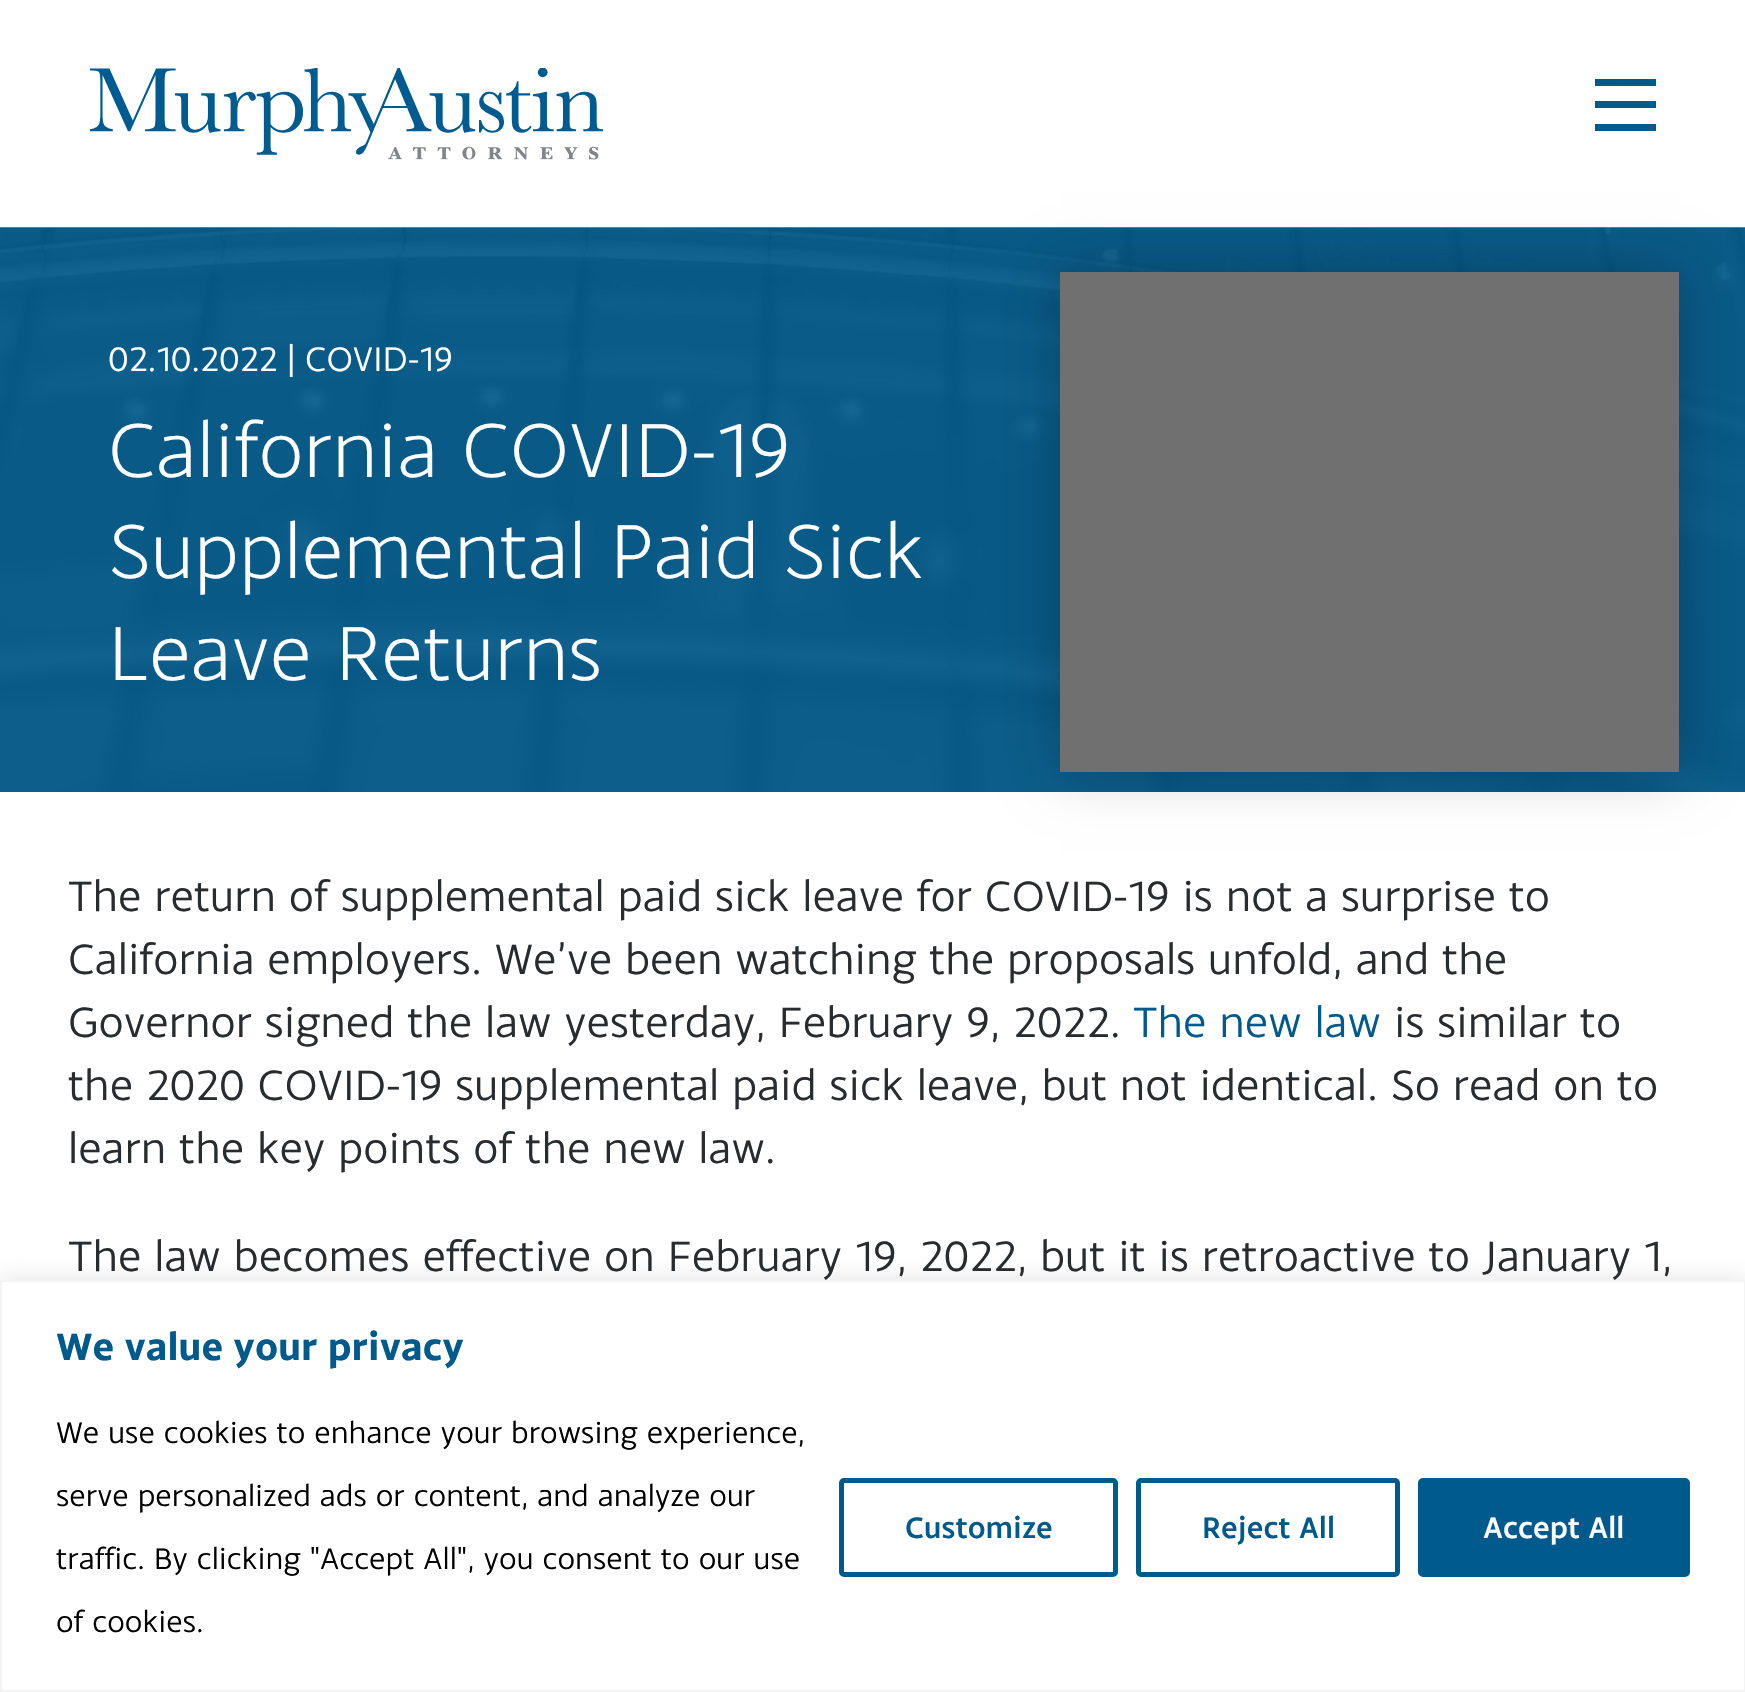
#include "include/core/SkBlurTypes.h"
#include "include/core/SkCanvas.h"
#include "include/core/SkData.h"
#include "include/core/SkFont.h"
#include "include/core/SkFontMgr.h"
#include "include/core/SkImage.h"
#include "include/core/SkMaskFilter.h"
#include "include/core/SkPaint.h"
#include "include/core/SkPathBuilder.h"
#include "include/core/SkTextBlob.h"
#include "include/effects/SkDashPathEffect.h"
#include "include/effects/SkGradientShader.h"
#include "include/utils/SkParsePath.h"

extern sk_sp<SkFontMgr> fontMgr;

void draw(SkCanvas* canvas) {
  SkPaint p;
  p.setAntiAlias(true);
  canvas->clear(SK_ColorWHITE);
  canvas->drawImageRect(SkImages::DeferredFromEncodedData(SkData::MakeFromFileName("images/2.png")), SkRect::MakeLTRB(0, 227, 1745, 792), SkSamplingOptions());
  p.setColor(SkColorSetARGB(59, 0, 0, 0));
  p.setMaskFilter(SkMaskFilter::MakeBlur(kNormal_SkBlurStyle, 27));
  canvas->drawRect(SkRect::MakeLTRB(1060, 272, 1679, 772), p);
  p.setMaskFilter(nullptr);
  p.setColor(SK_ColorWHITE);
  canvas->drawRect(SkRect::MakeLTRB(1104, 226, 1635, 227), p);
  canvas->drawImageRect(SkImages::DeferredFromEncodedData(SkData::MakeFromFileName("images/1.png")), SkRect::MakeLTRB(90, 68, 603, 160), SkSamplingOptions());
  p.setColor(SkColorSetRGB(0, 90, 139));
  canvas->drawRect(SkRect::MakeLTRB(1595, 79, 1656, 86), p);
  canvas->drawRect(SkRect::MakeLTRB(1595, 101, 1656, 108), p);
  canvas->drawRect(SkRect::MakeLTRB(1595, 124, 1656, 131), p);
  p.setColor(SkColorSetRGB(112, 112, 112));
  canvas->drawRect(SkRect::MakeLTRB(1060, 272, 1679, 772), p);
  p.setColor(SkColorSetARGB(77, 172, 171, 171));
  p.setMaskFilter(SkMaskFilter::MakeBlur(kNormal_SkBlurStyle, 11));
  canvas->drawRect(SkRect::MakeLTRB(0, 1278, 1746, 1690), p);
  p.setMaskFilter(nullptr);
  p.setColor(SK_ColorWHITE);
  canvas->drawRect(SkRect::MakeLTRB(1, 1281, 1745, 1691), p);
  p.setStyle(SkPaint::kStroke_Style);
  p.setStrokeWidth(2);
  p.setColor(SkColorSetRGB(244, 244, 244));
  canvas->drawRect(SkRect::MakeLTRB(1, 1281, 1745, 1691), p);
  p.setStrokeWidth(5);
  p.setColor(SkColorSetRGB(0, 90, 139));
  canvas->drawRoundRect(SkRect::MakeLTRB(841.5f, 1480.5f, 1115.5f, 1574.5f), 2.5f, 2.5f, p);
  canvas->drawRoundRect(SkRect::MakeLTRB(1138.5f, 1480.5f, 1397.5f, 1574.5f), 2.5f, 2.5f, p);
  p.setStyle(SkPaint::kFill_Style);
  canvas->drawRoundRect(SkRect::MakeLTRB(1420.5f, 1480.5f, 1687.5f, 1574.5f), 2.5f, 2.5f, p);
  p.setStyle(SkPaint::kStroke_Style);
  canvas->drawRoundRect(SkRect::MakeLTRB(1420.5f, 1480.5f, 1687.5f, 1574.5f), 2.5f, 2.5f, p);
  SkFont font1(fontMgr->matchFamilyStyle("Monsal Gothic", SkFontStyle::Normal()), 36);
  font1.setSubpixel(true);
  p.setStyle(SkPaint::kFill_Style);
  p.setColor(SK_ColorWHITE);
  canvas->drawString("02.10.2022 | COVID-19", 108, 371, font1, p);
  SkFont font2(fontMgr->matchFamilyStyle("Monsal Gothic", SkFontStyle(300, SkFontStyle::kNormal_Width, SkFontStyle::kUpright_Slant)), 81);
  font2.setSubpixel(true);
  canvas->drawString("California COVID-19", 108, 477, font2, p);
  canvas->drawString("Supplemental Paid Sick", 108, 578, font2, p);
  canvas->drawString("Leave Returns", 108, 680, font2, p);
  SkFont font3(fontMgr->matchFamilyStyle("Monsal Gothic", SkFontStyle::Normal()), 45);
  font3.setSubpixel(true);
  p.setColor(SkColorSetRGB(40, 44, 47));
  canvas->drawString("The return of supplemental paid sick leave for COVID-19 is not a surprise to", 68, 911, font3, p);
  canvas->drawString("California employers. We’ve been watching the proposals unfold, and the", 68, 974, font3, p);
  canvas->drawString("Governor signed the law yesterday, February 9, 2022.", 68, 1037, font3, p);
  p.setColor(SkColorSetRGB(0, 90, 139));
  canvas->drawString("The new law", 1133, 1037, font3, p);
  p.setColor(SkColorSetRGB(40, 44, 47));
  canvas->drawString("is similar to", 1394, 1037, font3, p);
  canvas->drawString("the 2020 COVID-19 supplemental paid sick leave, but not identical. So read on to", 68, 1100, font3, p);
  canvas->drawString("learn the key points of the new law.", 68, 1163, font3, p);
  canvas->drawString("The law becomes effective on February 19, 2022, but it is retroactive to January 1,", 68, 1271, font3, p);
  SkFont font4(fontMgr->matchFamilyStyle("Monsal Gothic", SkFontStyle::Bold()), 40.5f);
  font4.setSubpixel(true);
  p.setColor(SkColorSetRGB(0, 90, 139));
  canvas->drawString("We value your privacy", 56, 1360, font4, p);
  SkFont font5(fontMgr->matchFamilyStyle("Monsal Gothic", SkFontStyle::Normal()), 31.5f);
  font5.setSubpixel(true);
  p.setColor(SK_ColorBLACK);
  canvas->drawString("We use cookies to enhance your browsing experience,", 56, 1443, font5, p);
  canvas->drawString("serve personalized ads or content, and analyze our", 56, 1506, font5, p);
  canvas->drawString("traffic. By clicking \"Accept All\", you consent to our use", 56, 1569, font5, p);
  canvas->drawString("of cookies.", 56, 1632, font5, p);
  SkFont font6(fontMgr->matchFamilyStyle("Monsal Gothic", SkFontStyle(500, SkFontStyle::kNormal_Width, SkFontStyle::kUpright_Slant)), 31.5f);
  font6.setSubpixel(true);
  p.setColor(SkColorSetRGB(0, 90, 139));
  canvas->drawString("Customize", 905, 1538, font6, p);
  canvas->drawString("Reject All", 1202, 1538, font6, p);
  p.setColor(SK_ColorWHITE);
  canvas->drawString("Accept All", 1483, 1538, font6, p);
}
